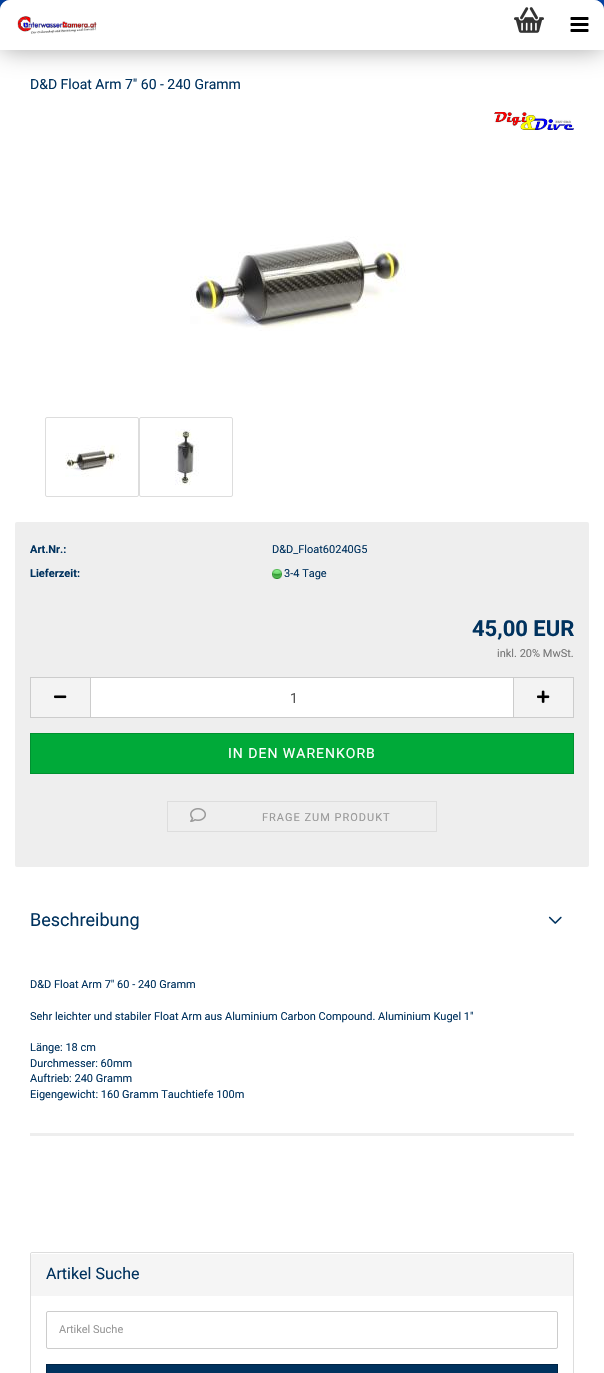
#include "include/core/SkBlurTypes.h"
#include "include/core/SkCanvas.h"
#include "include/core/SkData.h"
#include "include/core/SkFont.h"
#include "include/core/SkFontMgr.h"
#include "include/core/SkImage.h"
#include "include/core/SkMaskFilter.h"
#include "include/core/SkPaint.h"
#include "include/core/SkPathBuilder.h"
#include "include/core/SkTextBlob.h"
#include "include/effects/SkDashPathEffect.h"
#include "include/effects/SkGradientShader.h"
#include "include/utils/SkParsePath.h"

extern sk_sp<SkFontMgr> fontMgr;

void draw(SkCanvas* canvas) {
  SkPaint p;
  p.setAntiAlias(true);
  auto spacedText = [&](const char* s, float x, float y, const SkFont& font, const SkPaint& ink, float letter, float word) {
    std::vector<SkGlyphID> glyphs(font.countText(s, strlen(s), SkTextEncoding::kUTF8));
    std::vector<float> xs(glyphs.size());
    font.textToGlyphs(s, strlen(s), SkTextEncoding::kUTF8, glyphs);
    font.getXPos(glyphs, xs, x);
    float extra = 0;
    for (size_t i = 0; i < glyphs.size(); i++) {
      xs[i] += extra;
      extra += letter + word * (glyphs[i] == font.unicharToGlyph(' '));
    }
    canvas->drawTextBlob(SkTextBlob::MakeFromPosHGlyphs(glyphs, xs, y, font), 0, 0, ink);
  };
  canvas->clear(SK_ColorWHITE);
  canvas->drawImageRect(SkImages::DeferredFromEncodedData(SkData::MakeFromFileName("images/1.png")), SkRect::MakeLTRB(0, 0, 604, 10), SkSamplingOptions());
  p.setColor(SK_ColorWHITE);
  canvas->drawRoundRect(SkRect::MakeLTRB(0, 0, 604, 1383), 10, 10, p);
  p.setColor(SkColorSetARGB(89, 0, 0, 0));
  p.setMaskFilter(SkMaskFilter::MakeBlur(kNormal_SkBlurStyle, 12.5f));
  canvas->drawRoundRect(SkRect::MakeLTRB(0, 0, 604, 50), 10, 10, p);
  p.setMaskFilter(nullptr);
  p.setColor(SK_ColorWHITE);
  canvas->drawPath(SkPathBuilder().moveTo(10, 0).lineTo(594, 0).cubicTo(599.5f, 0, 604, 4.5f, 604, 10).lineTo(604, 50).lineTo(0, 50).lineTo(0, 10).cubicTo(0, 4.5f, 4.5f, 0, 10, 0).close().detach(), p);
  canvas->drawImageRect(SkImages::DeferredFromEncodedData(SkData::MakeFromFileName("images/2.png")), SkRect::MakeLTRB(17, 16, 97, 34), SkSamplingOptions());
  canvas->drawImageRect(SkImages::DeferredFromEncodedData(SkData::MakeFromFileName("images/3.png")), SkRect::MakeLTRB(514, 7, 544, 33), SkSamplingOptions());
  canvas->drawImageRect(SkImages::DeferredFromEncodedData(SkData::MakeFromFileName("images/4.png")), SkRect::MakeLTRB(570, 17, 589, 32), SkSamplingOptions());
  canvas->drawImageRect(SkImages::DeferredFromEncodedData(SkData::MakeFromFileName("images/5.png")), SkRect::MakeLTRB(494, 112, 574, 130), SkSamplingOptions());
  canvas->drawImageRect(SkImages::DeferredFromEncodedData(SkData::MakeFromFileName("images/6.png")), SkRect::MakeLTRB(190, 236, 406, 331), SkSamplingOptions());
  p.setStyle(SkPaint::kStroke_Style);
  p.setStrokeWidth(1);
  p.setColor(SkColorSetRGB(221, 221, 221));
  canvas->drawRoundRect(SkRect::MakeLTRB(45.5f, 417.5f, 138.5f, 496.5f), 1.5f, 1.5f, p);
  canvas->drawImageRect(SkImages::DeferredFromEncodedData(SkData::MakeFromFileName("images/7.png")), SkRect::MakeLTRB(65, 445, 121, 477), SkSamplingOptions());
  canvas->drawRoundRect(SkRect::MakeLTRB(139.5f, 417.5f, 232.5f, 496.5f), 1.5f, 1.5f, p);
  canvas->drawImageRect(SkImages::DeferredFromEncodedData(SkData::MakeFromFileName("images/8.png")), SkRect::MakeLTRB(175, 429, 199, 486), SkSamplingOptions());
  p.setStyle(SkPaint::kFill_Style);
  p.setColor(SkColorSetRGB(238, 238, 238));
  canvas->drawRoundRect(SkRect::MakeLTRB(15, 522, 589, 867), 2, 2, p);
  canvas->drawImageRect(SkImages::DeferredFromEncodedData(SkData::MakeFromFileName("images/9.png")), SkRect::MakeLTRB(272, 569, 282, 579), SkSamplingOptions());
  p.setColor(SkColorSetRGB(243, 243, 243));
  canvas->drawRect(SkRect::MakeLTRB(31, 678, 90, 717), p);
  p.setColor(SkColorSetRGB(204, 204, 204));
  canvas->drawRect(SkRect::MakeLTRB(30, 677, 90, 678), p);
  canvas->drawRect(SkRect::MakeLTRB(30, 717, 90, 718), p);
  canvas->drawRect(SkRect::MakeLTRB(30, 677, 31, 718), p);
  canvas->drawImageRect(SkImages::DeferredFromEncodedData(SkData::MakeFromFileName("images/10.png")), SkRect::MakeLTRB(54, 695, 67, 699), SkSamplingOptions());
  p.setColor(SK_ColorWHITE);
  canvas->drawRect(SkRect::MakeLTRB(90.5f, 677.5f, 513.5f, 717.5f), p);
  p.setStyle(SkPaint::kStroke_Style);
  p.setColor(SkColorSetRGB(204, 204, 204));
  canvas->drawRect(SkRect::MakeLTRB(90.5f, 677.5f, 513.5f, 717.5f), p);
  p.setStyle(SkPaint::kFill_Style);
  p.setColor(SkColorSetRGB(243, 243, 243));
  canvas->drawRect(SkRect::MakeLTRB(514, 678, 573, 717), p);
  p.setColor(SkColorSetRGB(204, 204, 204));
  canvas->drawRect(SkRect::MakeLTRB(514, 677, 574, 678), p);
  canvas->drawRect(SkRect::MakeLTRB(573, 677, 574, 718), p);
  canvas->drawRect(SkRect::MakeLTRB(514, 717, 574, 718), p);
  canvas->drawImageRect(SkImages::DeferredFromEncodedData(SkData::MakeFromFileName("images/11.png")), SkRect::MakeLTRB(537, 690, 550, 703), SkSamplingOptions());
  p.setColor(SkColorSetRGB(0, 170, 57));
  canvas->drawRect(SkRect::MakeLTRB(30.5f, 733.5f, 573.5f, 773.5f), p);
  p.setStyle(SkPaint::kStroke_Style);
  p.setColor(SkColorSetRGB(0, 145, 48));
  canvas->drawRect(SkRect::MakeLTRB(30.5f, 733.5f, 573.5f, 773.5f), p);
  p.setColor(SkColorSetRGB(221, 221, 221));
  canvas->drawRect(SkRect::MakeLTRB(167.5f, 801.5f, 436.5f, 831.5f), p);
  canvas->drawImageRect(SkImages::DeferredFromEncodedData(SkData::MakeFromFileName("images/12.png")), SkRect::MakeLTRB(190, 808, 206, 822), SkSamplingOptions());
  canvas->drawImageRect(SkImages::DeferredFromEncodedData(SkData::MakeFromFileName("images/13.png")), SkRect::MakeLTRB(548, 916, 562, 924), SkSamplingOptions());
  p.setStyle(SkPaint::kFill_Style);
  p.setColor(SkColorSetRGB(238, 238, 238));
  canvas->drawRect(SkRect::MakeLTRB(30, 1133, 574, 1136), p);
  p.setStyle(SkPaint::kStroke_Style);
  p.setColor(SkColorSetRGB(221, 221, 221));
  canvas->drawRoundRect(SkRect::MakeLTRB(30.5f, 1252.5f, 573.5f, 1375.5f), 1.5f, 1.5f, p);
  p.setStyle(SkPaint::kFill_Style);
  p.setColor(SkColorSetRGB(245, 245, 245));
  canvas->drawPath(SkPathBuilder().moveTo(32, 1253).lineTo(572, 1253).cubicTo(572.5f, 1253, 573, 1253.5f, 573, 1254).lineTo(573, 1296).lineTo(31, 1296).lineTo(31, 1254).cubicTo(31, 1253.5f, 31.5f, 1253, 32, 1253).close().detach(), p);
  p.setColor(SK_ColorWHITE);
  canvas->drawPath(SkPathBuilder().moveTo(32, 1254).lineTo(572, 1254).cubicTo(573, 1254, 573, 1254, 573, 1255).cubicTo(573, 1254, 573, 1253, 572, 1253).lineTo(32, 1253).lineTo(31, 1254).lineTo(31, 1255).close().detach(), p);
  p.setStyle(SkPaint::kStroke_Style);
  p.setColor(SkColorSetRGB(204, 204, 204));
  canvas->drawRoundRect(SkRect::MakeLTRB(46.5f, 1311.5f, 557.5f, 1348.5f), 1.5f, 1.5f, p);
  p.setStyle(SkPaint::kFill_Style);
  p.setColor(SkColorSetRGB(0, 50, 94));
  canvas->drawRect(SkRect::MakeLTRB(46.5f, 1364.5f, 557.5f, 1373.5f), p);
  p.setStyle(SkPaint::kStroke_Style);
  p.setColor(SkColorSetRGB(0, 36, 69));
  canvas->drawRect(SkRect::MakeLTRB(46.5f, 1364.5f, 557.5f, 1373.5f), p);
  SkFont font1(fontMgr->matchFamilyStyle("Roboto", SkFontStyle::Normal()), 14);
  font1.setSubpixel(true);
  p.setStyle(SkPaint::kFill_Style);
  p.setColor(SkColorSetRGB(0, 50, 94));
  canvas->drawString("D&D Float Arm 7\" 60 - 240 Gramm", 30, 89, font1, p);
  SkFont font2(fontMgr->matchFamilyStyle("Roboto", SkFontStyle::Bold()), 11);
  font2.setSubpixel(true);
  canvas->drawString("Art.Nr.:", 30, 553, font2, p);
  SkFont font3(fontMgr->matchFamilyStyle("Roboto", SkFontStyle::Normal()), 11);
  font3.setSubpixel(true);
  canvas->drawString("D&D_Float60240G5", 272, 553, font3, p);
  canvas->drawString("Lieferzeit:", 30, 577, font2, p);
  canvas->drawString("3-4 Tage", 284, 577, font3, p);
  SkFont font4(fontMgr->matchFamilyStyle("Roboto", SkFontStyle::Bold()), 22);
  font4.setSubpixel(true);
  canvas->drawString("45,00 EUR", 472, 636, font4, p);
  p.setColor(SkColorSetRGB(119, 119, 119));
  canvas->drawString("inkl. 20% MwSt.", 497, 657, font3, p);
  p.setColor(SkColorSetRGB(85, 85, 85));
  canvas->drawString("1", 290, 703, font1, p);
  p.setColor(SK_ColorWHITE);
  spacedText("IN DEN WARENKORB", 228, 758, font1, p, 1, 0);
  p.setColor(SkColorSetRGB(153, 153, 153));
  spacedText("FRAGE ZUM PRODUKT", 262, 821, font3, p, 1, 0);
  SkFont font5(fontMgr->matchFamilyStyle("Roboto", SkFontStyle::Normal()), 18);
  font5.setSubpixel(true);
  p.setColor(SkColorSetRGB(0, 50, 94));
  canvas->drawString("Beschreibung", 30, 926, font5, p);
  canvas->drawString("D&D Float Arm 7\" 60 - 240 Gramm", 30, 988, font3, p);
  canvas->drawString("Sehr leichter und stabiler Float Arm aus Aluminium Carbon Compound. Aluminium Kugel 1\"", 30, 1020, font3, p);
  canvas->drawString("Länge: 18 cm", 30, 1051, font3, p);
  canvas->drawString("Durchmesser: 60mm", 30, 1067, font3, p);
  canvas->drawString("Auftrieb: 240 Gramm", 30, 1082, font3, p);
  canvas->drawString("Eigengewicht: 160 Gramm Tauchtiefe 100m", 30, 1098, font3, p);
  SkFont font6(fontMgr->matchFamilyStyle("Roboto", SkFontStyle::Normal()), 16);
  font6.setSubpixel(true);
  canvas->drawString("Artikel Suche", 46, 1279, font6, p);
  p.setColor(SkColorSetRGB(153, 153, 153));
  canvas->drawString("Artikel Suche", 59, 1333, font3, p);
}
